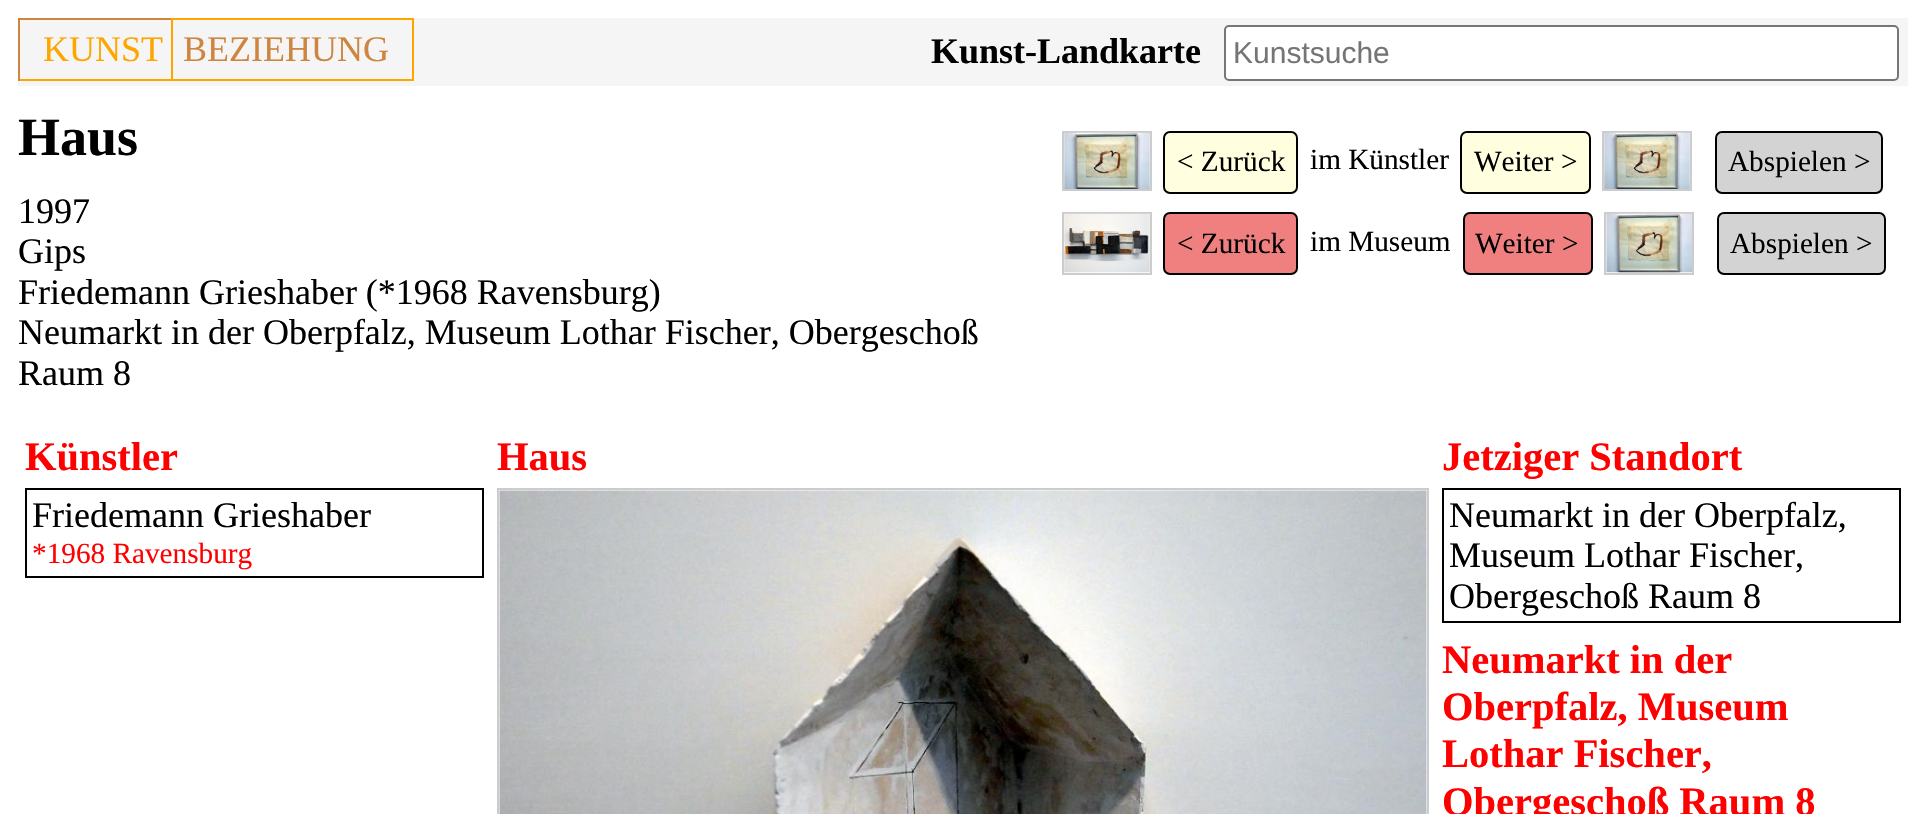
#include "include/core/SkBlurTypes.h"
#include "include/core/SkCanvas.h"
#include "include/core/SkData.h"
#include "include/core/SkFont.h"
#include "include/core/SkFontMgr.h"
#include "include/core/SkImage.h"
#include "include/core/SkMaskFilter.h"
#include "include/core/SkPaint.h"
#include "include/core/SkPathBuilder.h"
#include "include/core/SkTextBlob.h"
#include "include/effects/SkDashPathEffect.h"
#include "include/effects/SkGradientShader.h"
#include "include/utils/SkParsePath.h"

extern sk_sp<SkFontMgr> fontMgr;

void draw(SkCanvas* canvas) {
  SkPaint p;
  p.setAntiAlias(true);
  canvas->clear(SK_ColorWHITE);
  p.setColor(SkColorSetRGB(245, 245, 245));
  canvas->drawRect(SkRect::MakeLTRB(18, 18, 1908, 86), p);
  p.setColor(SkColorSetRGB(205, 133, 63));
  canvas->drawRect(SkRect::MakeLTRB(18, 18, 173, 20), p);
  p.setColor(SkColorSetRGB(255, 165, 0));
  canvas->drawRect(SkRect::MakeLTRB(171, 18, 173, 81), p);
  canvas->drawRect(SkRect::MakeLTRB(18, 79, 173, 81), p);
  p.setColor(SkColorSetRGB(205, 133, 63));
  canvas->drawRect(SkRect::MakeLTRB(18, 18, 20, 81), p);
  p.setColor(SkColorSetRGB(255, 165, 0));
  canvas->drawRect(SkRect::MakeLTRB(173, 18, 414, 20), p);
  canvas->drawRect(SkRect::MakeLTRB(412, 18, 414, 81), p);
  canvas->drawRect(SkRect::MakeLTRB(173, 79, 414, 81), p);
  p.setColor(SK_ColorWHITE);
  canvas->drawRoundRect(SkRect::MakeLTRB(1225, 26, 1898, 80), 4, 4, p);
  p.setStyle(SkPaint::kStroke_Style);
  p.setStrokeWidth(2);
  p.setColor(SkColorSetRGB(118, 118, 118));
  canvas->drawRoundRect(SkRect::MakeLTRB(1225, 26, 1898, 80), 4, 4, p);
  p.setColor(SkColorSetRGB(204, 204, 204));
  canvas->drawRect(SkRect::MakeLTRB(1063, 132, 1151, 190), p);
  canvas->drawImageRect(SkImages::DeferredFromEncodedData(SkData::MakeFromFileName("images/1.png")), SkRect::MakeLTRB(1064, 132, 1150, 189), SkSamplingOptions());
  p.setStyle(SkPaint::kFill_Style);
  p.setColor(SkColorSetRGB(255, 255, 224));
  canvas->drawRoundRect(SkRect::MakeLTRB(1164, 132, 1297, 193), 6, 6, p);
  p.setStyle(SkPaint::kStroke_Style);
  p.setColor(SK_ColorBLACK);
  canvas->drawRoundRect(SkRect::MakeLTRB(1164, 132, 1297, 193), 6, 6, p);
  p.setStyle(SkPaint::kFill_Style);
  p.setColor(SkColorSetRGB(255, 255, 224));
  canvas->drawRoundRect(SkRect::MakeLTRB(1461, 132, 1590, 193), 6, 6, p);
  p.setStyle(SkPaint::kStroke_Style);
  p.setColor(SK_ColorBLACK);
  canvas->drawRoundRect(SkRect::MakeLTRB(1461, 132, 1590, 193), 6, 6, p);
  p.setColor(SkColorSetRGB(204, 204, 204));
  canvas->drawRect(SkRect::MakeLTRB(1603, 132, 1691, 190), p);
  canvas->drawImageRect(SkImages::DeferredFromEncodedData(SkData::MakeFromFileName("images/2.png")), SkRect::MakeLTRB(1604, 132, 1690, 189), SkSamplingOptions());
  p.setStyle(SkPaint::kFill_Style);
  p.setColor(SkColorSetRGB(211, 211, 211));
  canvas->drawRoundRect(SkRect::MakeLTRB(1716, 132, 1882, 193), 6, 6, p);
  p.setStyle(SkPaint::kStroke_Style);
  p.setColor(SK_ColorBLACK);
  canvas->drawRoundRect(SkRect::MakeLTRB(1716, 132, 1882, 193), 6, 6, p);
  p.setColor(SkColorSetRGB(204, 204, 204));
  canvas->drawRect(SkRect::MakeLTRB(1063, 213, 1151, 274), p);
  canvas->drawImageRect(SkImages::DeferredFromEncodedData(SkData::MakeFromFileName("images/3.png")), SkRect::MakeLTRB(1064, 213, 1150, 273), SkSamplingOptions());
  p.setStyle(SkPaint::kFill_Style);
  p.setColor(SkColorSetRGB(240, 128, 128));
  canvas->drawRoundRect(SkRect::MakeLTRB(1164, 213, 1297, 274), 6, 6, p);
  p.setStyle(SkPaint::kStroke_Style);
  p.setColor(SK_ColorBLACK);
  canvas->drawRoundRect(SkRect::MakeLTRB(1164, 213, 1297, 274), 6, 6, p);
  p.setStyle(SkPaint::kFill_Style);
  p.setColor(SkColorSetRGB(240, 128, 128));
  canvas->drawRoundRect(SkRect::MakeLTRB(1464, 213, 1592, 274), 6, 6, p);
  p.setStyle(SkPaint::kStroke_Style);
  p.setColor(SK_ColorBLACK);
  canvas->drawRoundRect(SkRect::MakeLTRB(1464, 213, 1592, 274), 6, 6, p);
  p.setColor(SkColorSetRGB(204, 204, 204));
  canvas->drawRect(SkRect::MakeLTRB(1605, 213, 1693, 274), p);
  canvas->drawImageRect(SkImages::DeferredFromEncodedData(SkData::MakeFromFileName("images/4.png")), SkRect::MakeLTRB(1606, 213, 1692, 273), SkSamplingOptions());
  p.setStyle(SkPaint::kFill_Style);
  p.setColor(SkColorSetRGB(211, 211, 211));
  canvas->drawRoundRect(SkRect::MakeLTRB(1718, 213, 1885, 274), 6, 6, p);
  p.setStyle(SkPaint::kStroke_Style);
  p.setColor(SK_ColorBLACK);
  canvas->drawRoundRect(SkRect::MakeLTRB(1718, 213, 1885, 274), 6, 6, p);
  canvas->drawRect(SkRect::MakeLTRB(26, 489, 483, 577), p);
  p.setColor(SkColorSetRGB(204, 204, 204));
  canvas->drawRect(SkRect::MakeLTRB(498, 489, 1428, 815), p);
  canvas->drawImageRect(SkImages::DeferredFromEncodedData(SkData::MakeFromFileName("images/5.png")), SkRect::MakeLTRB(499, 490, 1427, 814), SkSamplingOptions());
  p.setColor(SK_ColorBLACK);
  canvas->drawRect(SkRect::MakeLTRB(1443, 489, 1900, 622), p);
  SkFont font1(fontMgr->matchFamilyStyle("Liberation Serif", SkFontStyle::Normal()), 36);
  font1.setSubpixel(true);
  p.setStyle(SkPaint::kFill_Style);
  p.setColor(SkColorSetRGB(255, 165, 0));
  canvas->drawString("KUNST", 43, 61, font1, p);
  p.setColor(SkColorSetRGB(205, 133, 63));
  canvas->drawString("BEZIEHUNG", 183, 61, font1, p);
  SkFont font2(fontMgr->matchFamilyStyle("Liberation Serif", SkFontStyle::Bold()), 36);
  font2.setSubpixel(true);
  p.setColor(SK_ColorBLACK);
  canvas->drawString("Kunst-Landkarte", 931, 63, font2, p);
  SkFont font3(fontMgr->matchFamilyStyle("Liberation Sans", SkFontStyle::Normal()), 30);
  font3.setSubpixel(true);
  p.setColor(SkColorSetRGB(117, 117, 117));
  canvas->drawString("Kunstsuche", 1233, 63, font3, p);
  SkFont font4(fontMgr->matchFamilyStyle("Liberation Serif", SkFontStyle::Bold()), 54);
  font4.setSubpixel(true);
  p.setColor(SK_ColorBLACK);
  canvas->drawString("Haus", 18, 155, font4, p);
  canvas->drawString("1997", 18, 223, font1, p);
  canvas->drawString("Gips", 18, 263, font1, p);
  canvas->drawString("Friedemann Grieshaber (*1968 Ravensburg)", 18, 304, font1, p);
  canvas->drawString("Neumarkt in der Oberpfalz, Museum Lothar Fischer, Obergeschoß", 18, 344, font1, p);
  canvas->drawString("Raum 8", 18, 385, font1, p);
  SkFont font5(fontMgr->matchFamilyStyle("Liberation Serif", SkFontStyle::Normal()), 29.25f);
  font5.setSubpixel(true);
  canvas->drawString("< Zurück", 1177, 171, font5, p);
  canvas->drawString("im Künstler", 1310, 169, font5, p);
  canvas->drawString("Weiter >", 1474, 171, font5, p);
  canvas->drawString("Abspielen >", 1728, 171, font5, p);
  canvas->drawString("< Zurück", 1177, 253, font5, p);
  canvas->drawString("im Museum", 1310, 251, font5, p);
  canvas->drawString("Weiter >", 1475, 253, font5, p);
  canvas->drawString("Abspielen >", 1730, 253, font5, p);
  SkFont font6(fontMgr->matchFamilyStyle("Liberation Serif", SkFontStyle::Bold()), 40.5f);
  font6.setSubpixel(true);
  p.setColor(SkColorSetRGB(255, 0, 0));
  canvas->drawString("Künstler", 25, 470, font6, p);
  p.setColor(SK_ColorBLACK);
  canvas->drawString("Friedemann Grieshaber", 32, 527, font1, p);
  p.setColor(SkColorSetRGB(255, 0, 0));
  canvas->drawString("*1968 Ravensburg", 32, 563, font5, p);
  canvas->drawString("Haus", 497, 470, font6, p);
  canvas->drawString("Jetziger Standort", 1442, 470, font6, p);
  p.setColor(SK_ColorBLACK);
  canvas->drawString("Neumarkt in der Oberpfalz,", 1449, 527, font1, p);
  canvas->drawString("Museum Lothar Fischer,", 1449, 567, font1, p);
  canvas->drawString("Obergeschoß Raum 8", 1449, 608, font1, p);
  p.setColor(SkColorSetRGB(255, 0, 0));
  canvas->drawString("Neumarkt in der", 1442, 673, font6, p);
  canvas->drawString("Oberpfalz, Museum", 1442, 720, font6, p);
  canvas->drawString("Lothar Fischer,", 1442, 767, font6, p);
  canvas->drawString("Obergeschoß Raum 8", 1442, 815, font6, p);
}
